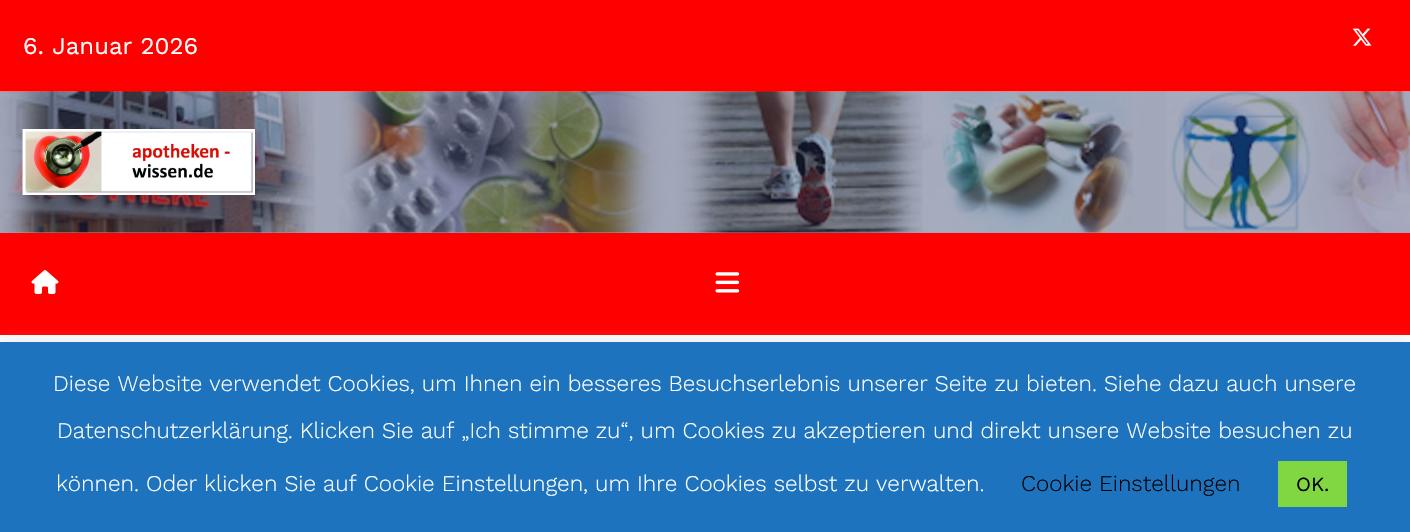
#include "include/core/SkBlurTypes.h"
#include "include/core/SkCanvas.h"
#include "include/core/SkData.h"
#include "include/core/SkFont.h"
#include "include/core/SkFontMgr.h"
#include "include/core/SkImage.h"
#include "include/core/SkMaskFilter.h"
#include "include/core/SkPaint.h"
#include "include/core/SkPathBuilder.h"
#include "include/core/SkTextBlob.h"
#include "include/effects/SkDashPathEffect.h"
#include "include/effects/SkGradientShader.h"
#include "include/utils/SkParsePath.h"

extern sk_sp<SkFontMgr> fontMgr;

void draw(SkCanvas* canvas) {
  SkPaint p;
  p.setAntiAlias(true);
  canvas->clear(SkColorSetRGB(156, 162, 179));
  p.setColor(SkColorSetRGB(255, 0, 0));
  canvas->drawRect(SkRect::MakeLTRB(0, 0, 1410, 92), p);
  canvas->drawImageRect(SkImages::DeferredFromEncodedData(SkData::MakeFromFileName("images/1.png")), SkRect::MakeLTRB(1352, 28, 1372, 46), SkSamplingOptions());
  canvas->drawImageRect(SkImages::DeferredFromEncodedData(SkData::MakeFromFileName("images/2.png")), SkRect::MakeLTRB(0, 91, 1410, 233), SkSamplingOptions());
  canvas->drawImageRect(SkImages::DeferredFromEncodedData(SkData::MakeFromFileName("images/3.png")), SkRect::MakeLTRB(22, 129, 255, 195), SkSamplingOptions());
  canvas->drawRect(SkRect::MakeLTRB(0, 233, 1410, 335), p);
  canvas->drawImageRect(SkImages::DeferredFromEncodedData(SkData::MakeFromFileName("images/4.png")), SkRect::MakeLTRB(31, 270, 59, 294), SkSamplingOptions());
  canvas->drawImageRect(SkImages::DeferredFromEncodedData(SkData::MakeFromFileName("images/5.png")), SkRect::MakeLTRB(715, 272, 740, 293), SkSamplingOptions());
  p.setColor(SK_ColorWHITE);
  canvas->drawRect(SkRect::MakeLTRB(0, 335, 1410, 342), p);
  p.setColor(SkColorSetARGB(77, 172, 171, 171));
  p.setMaskFilter(SkMaskFilter::MakeBlur(kNormal_SkBlurStyle, 7.5f));
  canvas->drawRect(SkRect::MakeLTRB(0, 341, 1410, 531), p);
  p.setMaskFilter(nullptr);
  p.setColor(SkColorSetRGB(30, 115, 190));
  canvas->drawRect(SkRect::MakeLTRB(0, 342, 1410, 532), p);
  p.setColor(SkColorSetRGB(129, 215, 66));
  canvas->drawRect(SkRect::MakeLTRB(1278, 461, 1347, 507), p);
  SkFont font1(fontMgr->matchFamilyStyle("Work Sans", SkFontStyle::Normal()), 24);
  font1.setSubpixel(true);
  p.setColor(SK_ColorWHITE);
  canvas->drawString("6. Januar 2026", 23, 54, font1, p);
  SkFont font2(fontMgr->matchFamilyStyle("Work Sans", SkFontStyle(300, SkFontStyle::kNormal_Width, SkFontStyle::kUpright_Slant)), 22.5f);
  font2.setSubpixel(true);
  canvas->drawString("Diese Website verwendet Cookies, um Ihnen ein besseres Besuchserlebnis unserer Seite zu bieten. Siehe dazu auch unsere", 53, 391, font2, p);
  canvas->drawString("Datenschutzerklärung. Klicken Sie auf „Ich stimme zu“, um Cookies zu akzeptieren und direkt unsere Website besuchen zu", 57, 438, font2, p);
  canvas->drawString("können. Oder klicken Sie auf Cookie Einstellungen, um Ihre Cookies selbst zu verwalten.", 56, 491, font2, p);
  p.setColor(SK_ColorBLACK);
  canvas->drawString("Cookie Einstellungen", 1021, 491, font2, p);
  SkFont font3(fontMgr->matchFamilyStyle("Work Sans", SkFontStyle::Normal()), 20);
  font3.setSubpixel(true);
  canvas->drawString("OK.", 1296, 491, font3, p);
}
